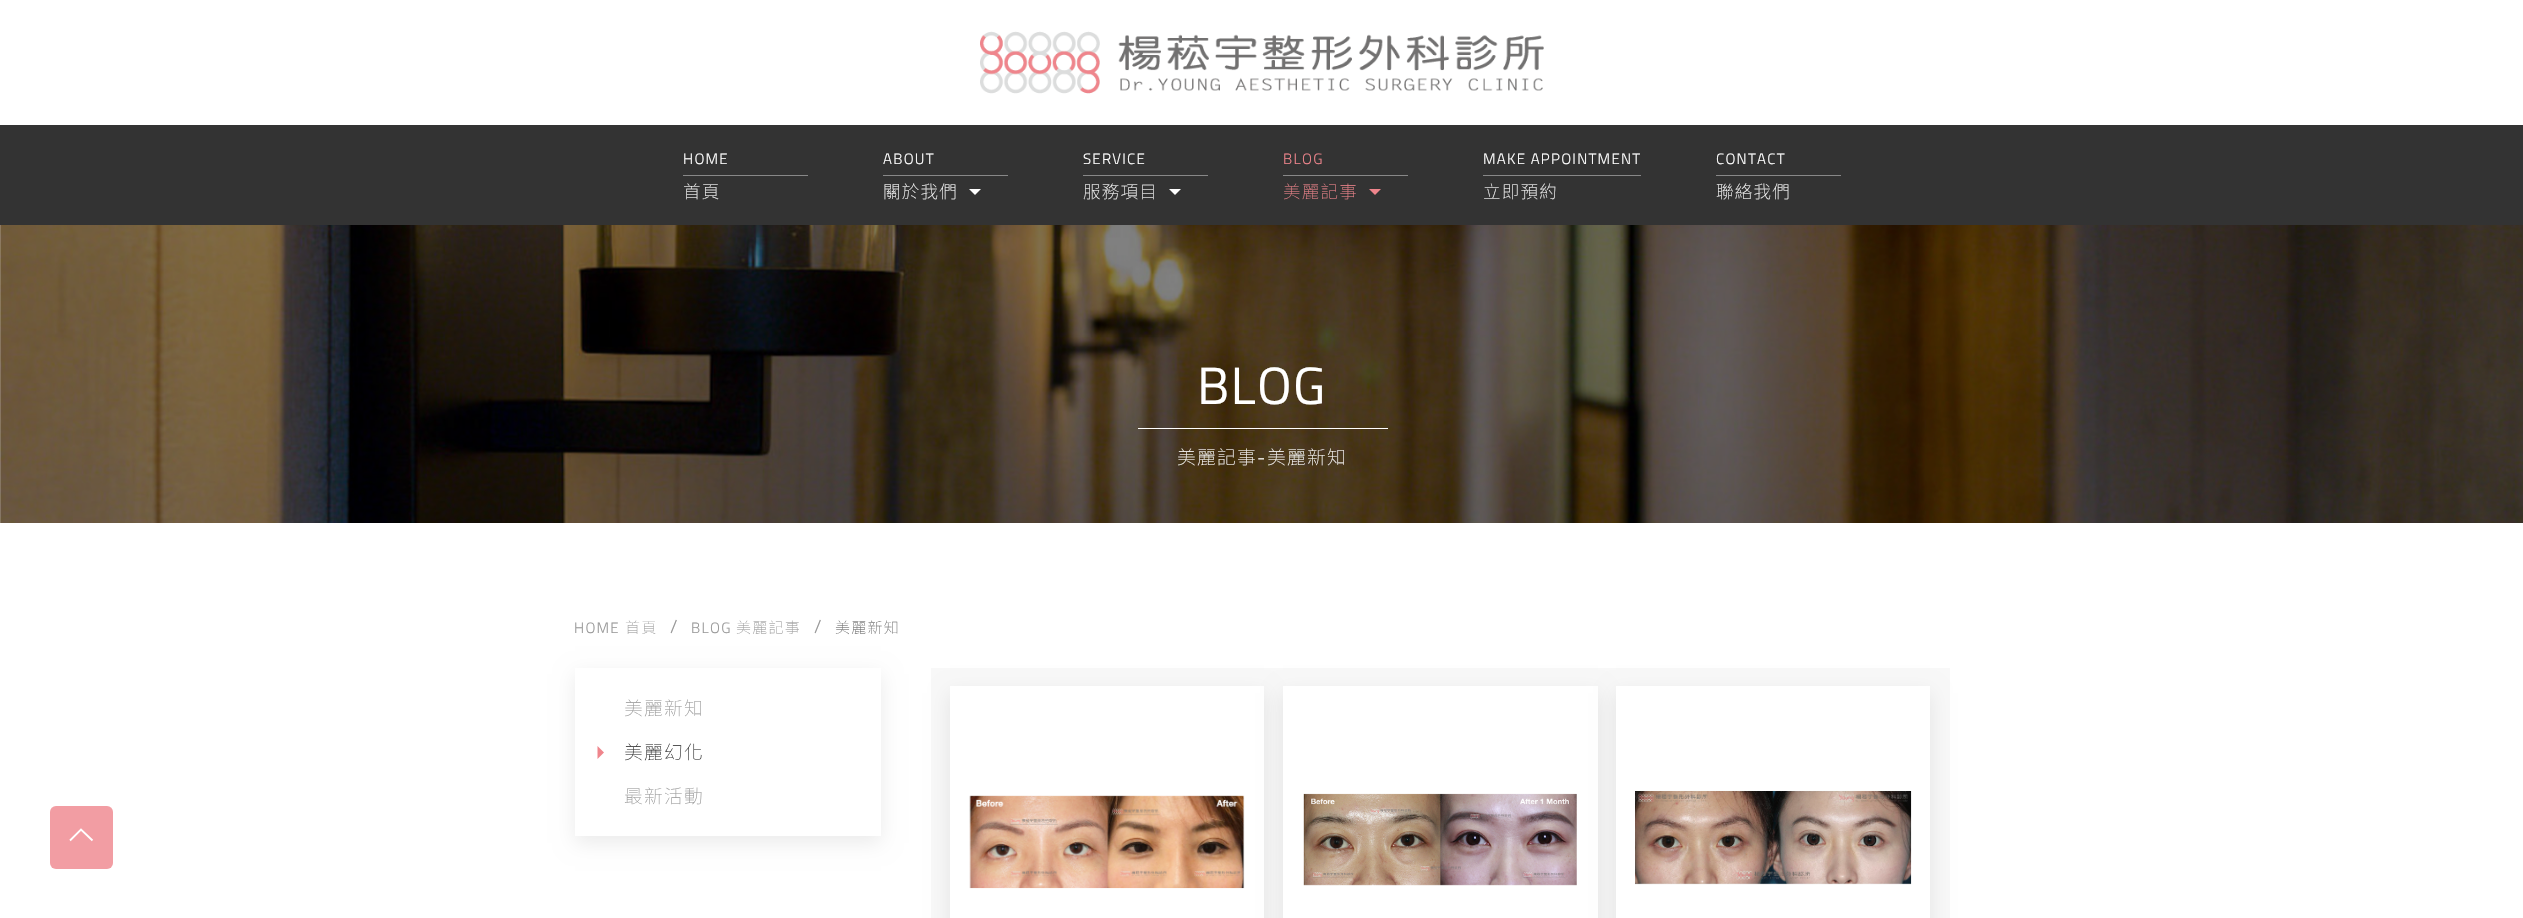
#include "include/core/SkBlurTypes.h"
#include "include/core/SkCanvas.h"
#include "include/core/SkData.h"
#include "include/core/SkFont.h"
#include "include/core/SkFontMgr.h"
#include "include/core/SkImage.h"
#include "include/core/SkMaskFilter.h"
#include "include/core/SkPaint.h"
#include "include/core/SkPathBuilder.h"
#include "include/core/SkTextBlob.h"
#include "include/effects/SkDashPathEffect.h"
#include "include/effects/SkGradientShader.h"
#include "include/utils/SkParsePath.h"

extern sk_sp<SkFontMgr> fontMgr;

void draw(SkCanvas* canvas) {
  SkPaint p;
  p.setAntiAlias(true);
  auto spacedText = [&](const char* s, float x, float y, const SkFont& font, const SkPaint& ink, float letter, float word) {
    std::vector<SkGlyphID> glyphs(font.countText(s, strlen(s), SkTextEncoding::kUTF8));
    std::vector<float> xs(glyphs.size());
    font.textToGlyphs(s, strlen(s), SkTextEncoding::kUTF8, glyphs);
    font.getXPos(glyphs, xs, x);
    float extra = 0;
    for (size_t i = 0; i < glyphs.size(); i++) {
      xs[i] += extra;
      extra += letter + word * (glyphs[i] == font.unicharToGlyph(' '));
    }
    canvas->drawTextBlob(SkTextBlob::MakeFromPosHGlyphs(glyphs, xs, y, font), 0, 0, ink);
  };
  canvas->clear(SK_ColorWHITE);
  canvas->drawImageRect(SkImages::DeferredFromEncodedData(SkData::MakeFromFileName("images/1.png")), SkRect::MakeLTRB(980, 31, 1544, 94), SkSamplingOptions());
  p.setColor(SkColorSetRGB(51, 51, 51));
  canvas->drawRect(SkRect::MakeLTRB(0, 125, 2523, 225), p);
  p.setColor(SkColorSetRGB(136, 136, 136));
  canvas->drawRect(SkRect::MakeLTRB(683, 175, 808, 176), p);
  canvas->drawRect(SkRect::MakeLTRB(883, 175, 1008, 176), p);
  p.setColor(SK_ColorWHITE);
  canvas->drawPath(SkPathBuilder().moveTo(969, 189).lineTo(981, 189).lineTo(975, 195).close().detach(), p);
  p.setColor(SkColorSetRGB(136, 136, 136));
  canvas->drawRect(SkRect::MakeLTRB(1083, 175, 1208, 176), p);
  p.setColor(SK_ColorWHITE);
  canvas->drawPath(SkPathBuilder().moveTo(1169, 189).lineTo(1181, 189).lineTo(1175, 195).close().detach(), p);
  p.setColor(SkColorSetRGB(136, 136, 136));
  canvas->drawRect(SkRect::MakeLTRB(1283, 175, 1408, 176), p);
  p.setColor(SkColorSetRGB(239, 133, 140));
  canvas->drawPath(SkPathBuilder().moveTo(1369, 189).lineTo(1381, 189).lineTo(1375, 195).close().detach(), p);
  p.setColor(SkColorSetRGB(136, 136, 136));
  canvas->drawRect(SkRect::MakeLTRB(1483, 175, 1641, 176), p);
  canvas->drawRect(SkRect::MakeLTRB(1716, 175, 1841, 176), p);
  canvas->drawImageRect(SkImages::DeferredFromEncodedData(SkData::MakeFromFileName("images/2.png")), SkRect::MakeLTRB(0, 225, 2523, 523), SkSamplingOptions());
  p.setColor(SK_ColorWHITE);
  canvas->drawRect(SkRect::MakeLTRB(1138, 428, 1388, 429), p);
  canvas->save();
  canvas->clipPath(SkPathBuilder(SkPathFillType::kEvenOdd).moveTo(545, 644).lineTo(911, 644).lineTo(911, 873).lineTo(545, 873).close().moveTo(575, 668).lineTo(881, 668).lineTo(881, 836).lineTo(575, 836).close().detach(), true);
  p.setColor(SkColorSetARGB(20, 0, 0, 0));
  p.setMaskFilter(SkMaskFilter::MakeBlur(kNormal_SkBlurStyle, 9.5f));
  canvas->drawRect(SkRect::MakeLTRB(575, 674, 881, 843), p);
  p.setMaskFilter(nullptr);
  canvas->restore();
  p.setColor(SkColorSetRGB(239, 133, 140));
  canvas->drawPath(SkPathBuilder().moveTo(597.5f, 746).lineTo(604, 752.5f).lineTo(597.5f, 759).close().detach(), p);
  p.setColor(SkColorSetRGB(248, 248, 248));
  canvas->drawRect(SkRect::MakeLTRB(931, 668, 1950, 918), p);
  p.setColor(SkColorSetARGB(20, 0, 0, 0));
  p.setMaskFilter(SkMaskFilter::MakeBlur(kNormal_SkBlurStyle, 9.5f));
  canvas->drawRect(SkRect::MakeLTRB(950, 693, 1264, 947), p);
  p.setMaskFilter(nullptr);
  p.setColor(SK_ColorWHITE);
  canvas->drawRect(SkRect::MakeLTRB(950, 686, 1264, 918), p);
  canvas->drawImageRect(SkImages::DeferredFromEncodedData(SkData::MakeFromFileName("images/3.png")), SkRect::MakeLTRB(969, 795, 1245, 889), SkSamplingOptions());
  p.setColor(SkColorSetARGB(20, 0, 0, 0));
  p.setMaskFilter(SkMaskFilter::MakeBlur(kNormal_SkBlurStyle, 9.5f));
  canvas->drawRect(SkRect::MakeLTRB(1283, 693, 1598, 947), p);
  p.setMaskFilter(nullptr);
  p.setColor(SK_ColorWHITE);
  canvas->drawRect(SkRect::MakeLTRB(1283, 686, 1598, 918), p);
  canvas->drawImageRect(SkImages::DeferredFromEncodedData(SkData::MakeFromFileName("images/4.png")), SkRect::MakeLTRB(1303, 793, 1577, 886), SkSamplingOptions());
  p.setColor(SkColorSetARGB(20, 0, 0, 0));
  p.setMaskFilter(SkMaskFilter::MakeBlur(kNormal_SkBlurStyle, 9.5f));
  canvas->drawRect(SkRect::MakeLTRB(1616, 693, 1930, 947), p);
  p.setMaskFilter(nullptr);
  p.setColor(SK_ColorWHITE);
  canvas->drawRect(SkRect::MakeLTRB(1616, 686, 1930, 918), p);
  canvas->drawImageRect(SkImages::DeferredFromEncodedData(SkData::MakeFromFileName("images/5.png")), SkRect::MakeLTRB(1635, 790, 1912, 885), SkSamplingOptions());
  p.setColor(SkColorSetRGB(242, 157, 163));
  canvas->drawRoundRect(SkRect::MakeLTRB(50, 806, 113, 869), 6, 6, p);
  p.setStyle(SkPaint::kStroke_Style);
  p.setStrokeWidth(1.9f);
  p.setColor(SK_ColorWHITE);
  canvas->drawPath(SkPathBuilder().moveTo(70, 840.5f).lineTo(81, 829.5f).lineTo(92.5f, 840.5f).detach(), p);
  SkFont font1(fontMgr->matchFamilyStyle("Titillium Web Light", SkFontStyle(300, SkFontStyle::kNormal_Width, SkFontStyle::kUpright_Slant)), 15);
  font1.setSubpixel(true);
  p.setStyle(SkPaint::kFill_Style);
  spacedText("HOME", 683, 164, font1, p, 1.25f, 0);
  SkFont font2(fontMgr->matchFamilyStyle("Noto Sans TC", SkFontStyle(100, SkFontStyle::kNormal_Width, SkFontStyle::kUpright_Slant)), 17.5f);
  font2.setSubpixel(true);
  spacedText("首頁", 683, 198, font2, p, 1.25f, 0);
  spacedText("ABOUT", 883, 164, font1, p, 1.25f, 0);
  spacedText("關於我們", 883, 198, font2, p, 1.25f, 0);
  spacedText("SERVICE", 1083, 164, font1, p, 1.25f, 0);
  spacedText("服務項目", 1083, 198, font2, p, 1.25f, 0);
  p.setColor(SkColorSetRGB(239, 133, 140));
  spacedText("BLOG", 1283, 164, font1, p, 1.25f, 0);
  spacedText("美麗記事", 1283, 198, font2, p, 1.25f, 0);
  p.setColor(SK_ColorWHITE);
  spacedText("MAKE APPOINTMENT", 1483, 164, font1, p, 1.25f, 0);
  spacedText("立即預約", 1483, 198, font2, p, 1.25f, 0);
  spacedText("CONTACT", 1716, 164, font1, p, 1.25f, 0);
  spacedText("聯絡我們", 1716, 198, font2, p, 1.25f, 0);
  SkFont font3(fontMgr->matchFamilyStyle("Titillium Web", SkFontStyle::Normal()), 52.5f);
  font3.setSubpixel(true);
  spacedText("BLOG", 1197, 404, font3, p, 1.25f, 0);
  SkFont font4(fontMgr->matchFamilyStyle("Noto Sans TC", SkFontStyle(100, SkFontStyle::kNormal_Width, SkFontStyle::kUpright_Slant)), 18.75f);
  font4.setSubpixel(true);
  spacedText("美麗記事", 1177, 464, font4, p, 1.25f, 0);
  SkFont font5(fontMgr->matchFamilyStyle("Titillium Web Light", SkFontStyle(300, SkFontStyle::kNormal_Width, SkFontStyle::kUpright_Slant)), 18.75f);
  font5.setSubpixel(true);
  spacedText("-", 1257, 464, font5, p, 1.25f, 0);
  spacedText("美麗新知", 1267, 464, font4, p, 1.25f, 0);
  p.setColor(SkColorSetRGB(153, 153, 153));
  spacedText("HOME", 574, 633, font1, p, 1.25f, 0);
  SkFont font6(fontMgr->matchFamilyStyle("Noto Sans TC", SkFontStyle(100, SkFontStyle::kNormal_Width, SkFontStyle::kUpright_Slant)), 15);
  font6.setSubpixel(true);
  spacedText("首頁", 625, 633, font6, p, 1.25f, 0);
  spacedText("/", 670, 633, font5, p, 1.25f, 0);
  spacedText("BLOG", 691, 633, font1, p, 1.25f, 0);
  spacedText("美麗記事", 736, 633, font6, p, 1.25f, 0);
  spacedText("/", 814, 633, font5, p, 1.25f, 0);
  p.setColor(SkColorSetRGB(102, 102, 102));
  spacedText("美麗新知", 835, 633, font6, p, 1.25f, 0);
  p.setColor(SkColorSetRGB(153, 153, 153));
  spacedText("美麗新知", 624, 715, font4, p, 1.25f, 0);
  p.setColor(SkColorSetRGB(51, 51, 51));
  spacedText("美麗幻化", 624, 759, font4, p, 1.25f, 0);
  p.setColor(SkColorSetRGB(153, 153, 153));
  spacedText("最新活動", 624, 803, font4, p, 1.25f, 0);
}
